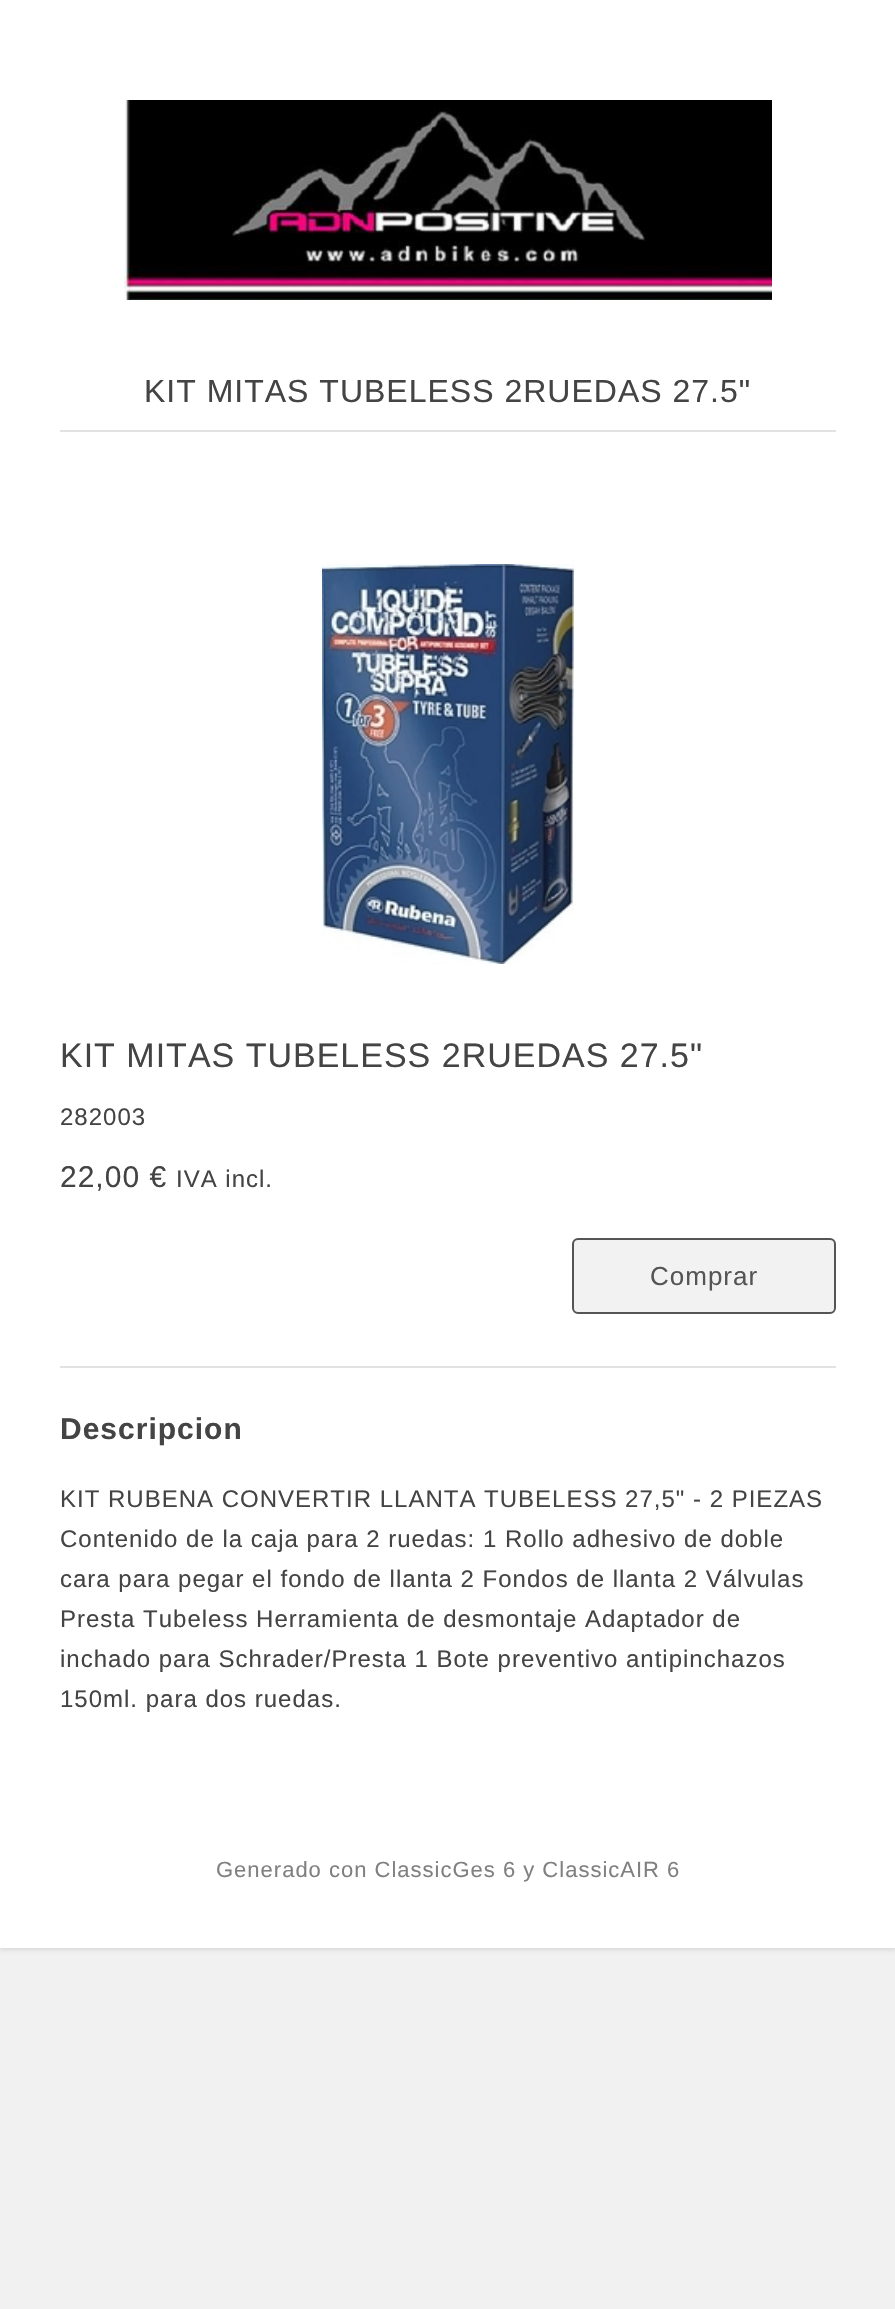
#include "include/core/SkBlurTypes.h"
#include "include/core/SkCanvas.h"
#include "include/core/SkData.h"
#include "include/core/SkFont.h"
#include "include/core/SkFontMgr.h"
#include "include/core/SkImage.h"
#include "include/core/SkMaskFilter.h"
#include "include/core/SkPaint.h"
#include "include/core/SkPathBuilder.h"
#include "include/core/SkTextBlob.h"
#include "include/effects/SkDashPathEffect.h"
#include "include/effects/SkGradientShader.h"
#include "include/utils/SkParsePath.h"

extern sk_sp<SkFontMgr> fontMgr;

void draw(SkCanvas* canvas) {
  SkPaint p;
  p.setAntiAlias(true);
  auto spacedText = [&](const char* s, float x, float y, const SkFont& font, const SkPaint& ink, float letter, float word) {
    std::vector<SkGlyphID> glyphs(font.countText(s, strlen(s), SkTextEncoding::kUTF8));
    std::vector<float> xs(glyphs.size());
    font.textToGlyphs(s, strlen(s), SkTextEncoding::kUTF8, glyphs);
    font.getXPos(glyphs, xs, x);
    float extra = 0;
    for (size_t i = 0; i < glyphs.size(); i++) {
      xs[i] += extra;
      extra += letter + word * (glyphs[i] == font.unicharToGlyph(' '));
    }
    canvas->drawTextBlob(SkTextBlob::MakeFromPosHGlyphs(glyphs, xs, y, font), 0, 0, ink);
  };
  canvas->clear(SkColorSetRGB(241, 241, 241));
  p.setColor(SkColorSetARGB(26, 0, 0, 0));
  p.setMaskFilter(SkMaskFilter::MakeBlur(kNormal_SkBlurStyle, 2));
  canvas->drawRect(SkRect::MakeLTRB(0, 2, 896, 1950), p);
  p.setMaskFilter(nullptr);
  p.setColor(SK_ColorWHITE);
  canvas->drawRect(SkRect::MakeLTRB(0, 0, 895, 1948), p);
  canvas->drawImageRect(SkImages::DeferredFromEncodedData(SkData::MakeFromFileName("images/1.png")), SkRect::MakeLTRB(124, 100, 772, 300), SkSamplingOptions());
  p.setColor(SkColorSetRGB(226, 226, 226));
  canvas->drawRect(SkRect::MakeLTRB(60, 430, 836, 432), p);
  canvas->drawImageRect(SkImages::DeferredFromEncodedData(SkData::MakeFromFileName("images/2.png")), SkRect::MakeLTRB(322, 564, 574, 964), SkSamplingOptions());
  canvas->drawRect(SkRect::MakeLTRB(60, 1366, 836, 1368), p);
  p.setColor(SkColorSetRGB(242, 242, 242));
  canvas->drawRoundRect(SkRect::MakeLTRB(573, 1239, 835, 1313), 5, 5, p);
  p.setStyle(SkPaint::kStroke_Style);
  p.setStrokeWidth(2);
  p.setColor(SkColorSetRGB(85, 85, 85));
  canvas->drawRoundRect(SkRect::MakeLTRB(573, 1239, 835, 1313), 5, 5, p);
  SkFont font1(fontMgr->matchFamilyStyle("Liberation Sans", SkFontStyle::Normal()), 32);
  font1.setSubpixel(true);
  p.setStyle(SkPaint::kFill_Style);
  p.setColor(SkColorSetRGB(68, 68, 68));
  spacedText("KIT MITAS TUBELESS 2RUEDAS 27.5\"", 144, 402, font1, p, 1, 0);
  SkFont font2(fontMgr->matchFamilyStyle("Liberation Sans", SkFontStyle::Normal()), 34);
  font2.setSubpixel(true);
  spacedText("KIT MITAS TUBELESS 2RUEDAS 27.5\"", 60, 1067, font2, p, 1, 0);
  SkFont font3(fontMgr->matchFamilyStyle("Liberation Sans", SkFontStyle::Normal()), 24);
  font3.setSubpixel(true);
  spacedText("282003", 60, 1125, font3, p, 1, 0);
  SkFont font4(fontMgr->matchFamilyStyle("Liberation Sans", SkFontStyle::Normal()), 30);
  font4.setSubpixel(true);
  spacedText("22,00 €", 60, 1187, font4, p, 1, 0);
  spacedText("IVA incl.", 176, 1187, font3, p, 1, 0);
  SkFont font5(fontMgr->matchFamilyStyle("Liberation Sans", SkFontStyle::Normal()), 26);
  font5.setSubpixel(true);
  p.setColor(SkColorSetRGB(85, 85, 85));
  spacedText("Comprar", 650, 1285, font5, p, 1, 0);
  SkFont font6(fontMgr->matchFamilyStyle("Liberation Sans", SkFontStyle::Bold()), 30);
  font6.setSubpixel(true);
  p.setColor(SkColorSetRGB(68, 68, 68));
  spacedText("Descripcion", 60, 1439, font6, p, 1, 0);
  spacedText("KIT RUBENA CONVERTIR LLANTA TUBELESS 27,5\" - 2 PIEZAS", 60, 1507, font3, p, 1, 0);
  spacedText("Contenido de la caja para 2 ruedas: 1 Rollo adhesivo de doble", 60, 1547, font3, p, 1, 0);
  spacedText("cara para pegar el fondo de llanta 2 Fondos de llanta 2 Válvulas", 60, 1587, font3, p, 1, 0);
  spacedText("Presta Tubeless Herramienta de desmontaje Adaptador de", 60, 1627, font3, p, 1, 0);
  spacedText("inchado para Schrader/Presta 1 Bote preventivo antipinchazos", 60, 1667, font3, p, 1, 0);
  spacedText("150ml. para dos ruedas.", 60, 1707, font3, p, 1, 0);
  SkFont font7(fontMgr->matchFamilyStyle("Liberation Sans", SkFontStyle::Normal()), 22);
  font7.setSubpixel(true);
  p.setColor(SkColorSetRGB(128, 128, 128));
  spacedText("Generado con ClassicGes 6 y ClassicAIR 6", 216, 1877, font7, p, 1, 0);
}
